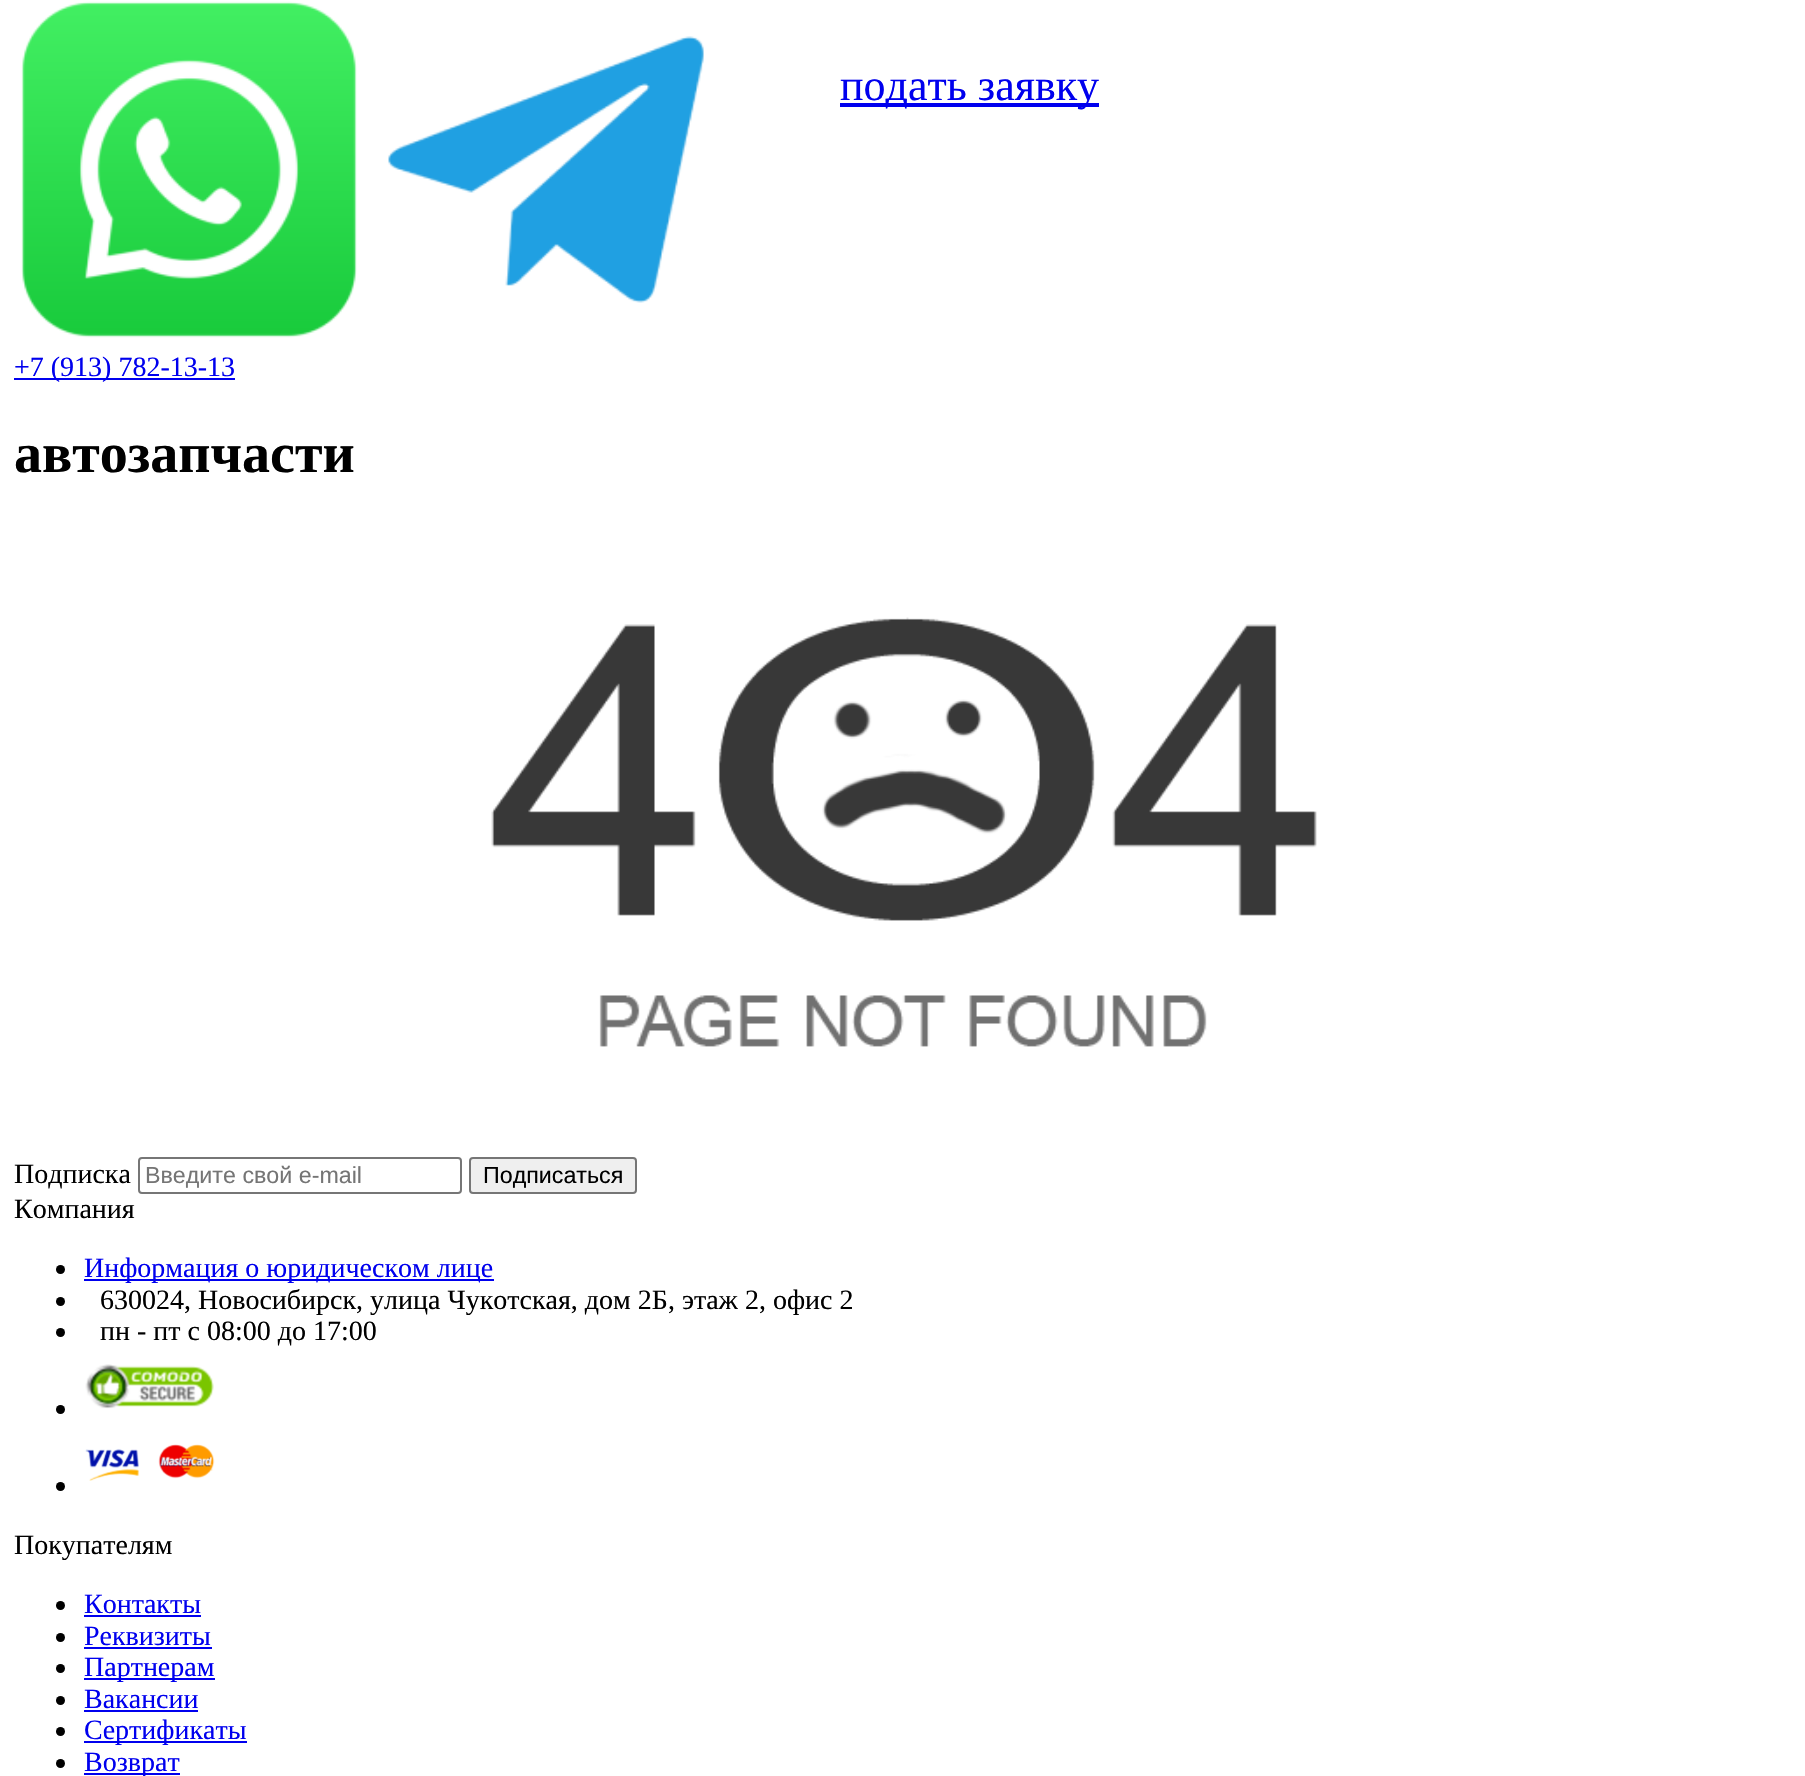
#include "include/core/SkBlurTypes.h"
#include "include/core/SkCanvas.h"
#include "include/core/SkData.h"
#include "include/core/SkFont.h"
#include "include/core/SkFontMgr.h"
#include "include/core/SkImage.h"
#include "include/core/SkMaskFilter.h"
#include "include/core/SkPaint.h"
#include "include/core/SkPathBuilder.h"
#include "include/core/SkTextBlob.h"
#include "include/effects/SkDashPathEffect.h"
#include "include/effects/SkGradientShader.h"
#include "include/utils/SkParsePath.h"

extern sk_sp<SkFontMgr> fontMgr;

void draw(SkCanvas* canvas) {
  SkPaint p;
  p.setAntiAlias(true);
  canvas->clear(SK_ColorWHITE);
  p.setColor(SkColorSetRGB(0, 0, 238));
  canvas->drawRect(SkRect::MakeLTRB(840, 103, 1099, 107), p);
  canvas->drawImageRect(SkImages::DeferredFromEncodedData(SkData::MakeFromFileName("images/1.png")), SkRect::MakeLTRB(21, 1, 357, 338), SkSamplingOptions());
  canvas->drawImageRect(SkImages::DeferredFromEncodedData(SkData::MakeFromFileName("images/2.png")), SkRect::MakeLTRB(388, 36, 704, 303), SkSamplingOptions());
  canvas->drawRect(SkRect::MakeLTRB(14, 378, 235, 380), p);
  canvas->drawImageRect(SkImages::DeferredFromEncodedData(SkData::MakeFromFileName("images/3.png")), SkRect::MakeLTRB(491, 617, 1317, 1047), SkSamplingOptions());
  p.setStyle(SkPaint::kStroke_Style);
  p.setStrokeWidth(2);
  p.setColor(SkColorSetRGB(118, 118, 118));
  canvas->drawRoundRect(SkRect::MakeLTRB(139, 1158, 461, 1193), 3, 3, p);
  p.setStyle(SkPaint::kFill_Style);
  p.setColor(SkColorSetRGB(239, 239, 239));
  canvas->drawRoundRect(SkRect::MakeLTRB(470, 1158, 636, 1193), 3, 3, p);
  p.setStyle(SkPaint::kStroke_Style);
  p.setColor(SkColorSetRGB(118, 118, 118));
  canvas->drawRoundRect(SkRect::MakeLTRB(470, 1158, 636, 1193), 3, 3, p);
  p.setStyle(SkPaint::kFill_Style);
  p.setColor(SK_ColorBLACK);
  canvas->drawCircle(60.5f, 1269.5f, 4.5f, p);
  p.setColor(SkColorSetRGB(0, 0, 238));
  canvas->drawRect(SkRect::MakeLTRB(84, 1279, 494, 1281), p);
  p.setColor(SK_ColorBLACK);
  canvas->drawCircle(60.5f, 1301.5f, 4.5f, p);
  canvas->drawCircle(60.5f, 1332.5f, 4.5f, p);
  canvas->drawCircle(60.5f, 1409.5f, 4.5f, p);
  canvas->drawImageRect(SkImages::DeferredFromEncodedData(SkData::MakeFromFileName("images/4.png")), SkRect::MakeLTRB(85, 1364, 214, 1409), SkSamplingOptions());
  canvas->drawImageRect(SkImages::DeferredFromEncodedData(SkData::MakeFromFileName("images/5.png")), SkRect::MakeLTRB(85, 1444, 215, 1481), SkSamplingOptions());
  canvas->drawCircle(60.5f, 1486.5f, 4.5f, p);
  canvas->drawCircle(60.5f, 1605.5f, 4.5f, p);
  p.setColor(SkColorSetRGB(0, 0, 238));
  canvas->drawRect(SkRect::MakeLTRB(84, 1615, 201, 1617), p);
  p.setColor(SK_ColorBLACK);
  canvas->drawCircle(60.5f, 1637.5f, 4.5f, p);
  p.setColor(SkColorSetRGB(0, 0, 238));
  canvas->drawRect(SkRect::MakeLTRB(84, 1647, 212, 1649), p);
  p.setColor(SK_ColorBLACK);
  canvas->drawCircle(60.5f, 1668.5f, 4.5f, p);
  p.setColor(SkColorSetRGB(0, 0, 238));
  canvas->drawRect(SkRect::MakeLTRB(84, 1678, 215, 1680), p);
  p.setColor(SK_ColorBLACK);
  canvas->drawCircle(60.5f, 1700.5f, 4.5f, p);
  p.setColor(SkColorSetRGB(0, 0, 238));
  canvas->drawRect(SkRect::MakeLTRB(84, 1710, 198, 1712), p);
  p.setColor(SK_ColorBLACK);
  canvas->drawCircle(60.5f, 1731.5f, 4.5f, p);
  p.setColor(SkColorSetRGB(0, 0, 238));
  canvas->drawRect(SkRect::MakeLTRB(84, 1741, 247, 1743), p);
  p.setColor(SK_ColorBLACK);
  canvas->drawCircle(60.5f, 1763.5f, 4.5f, p);
  p.setColor(SkColorSetRGB(0, 0, 238));
  canvas->drawRect(SkRect::MakeLTRB(84, 1773, 180, 1775), p);
  SkFont font1(fontMgr->matchFamilyStyle("Liberation Serif", SkFontStyle::Normal()), 44);
  font1.setSubpixel(true);
  canvas->drawString("подать заявку", 840, 100, font1, p);
  SkFont font2(fontMgr->matchFamilyStyle("Liberation Serif", SkFontStyle::Normal()), 28);
  font2.setSubpixel(true);
  canvas->drawString("+7 (913) 782-13-13", 14, 376, font2, p);
  SkFont font3(fontMgr->matchFamilyStyle("Liberation Serif", SkFontStyle::Bold()), 56);
  font3.setSubpixel(true);
  p.setColor(SK_ColorBLACK);
  canvas->drawString("автозапчасти", 14, 472, font3, p);
  canvas->drawString("Подписка", 14, 1183, font2, p);
  SkFont font4(fontMgr->matchFamilyStyle("Liberation Sans", SkFontStyle::Normal()), 23.25f);
  font4.setSubpixel(true);
  p.setColor(SkColorSetRGB(117, 117, 117));
  canvas->drawString("Введите свой e-mail", 145, 1183, font4, p);
  p.setColor(SK_ColorBLACK);
  canvas->drawString("Подписаться", 483, 1183, font4, p);
  canvas->drawString("Компания", 14, 1218, font2, p);
  p.setColor(SkColorSetRGB(0, 0, 238));
  canvas->drawString("Информация о юридическом лице", 84, 1277, font2, p);
  p.setColor(SK_ColorBLACK);
  canvas->drawString("630024, Новосибирск, улица Чукотская, дом 2Б, этаж 2, офис 2", 100, 1309, font2, p);
  canvas->drawString("пн - пт с 08:00 до 17:00", 100, 1340, font2, p);
  canvas->drawString("Покупателям", 14, 1554, font2, p);
  p.setColor(SkColorSetRGB(0, 0, 238));
  canvas->drawString("Контакты", 84, 1613, font2, p);
  canvas->drawString("Реквизиты", 84, 1645, font2, p);
  canvas->drawString("Партнерам", 84, 1676, font2, p);
  canvas->drawString("Вакансии", 84, 1708, font2, p);
  canvas->drawString("Сертификаты", 84, 1739, font2, p);
  canvas->drawString("Возврат", 84, 1771, font2, p);
}
